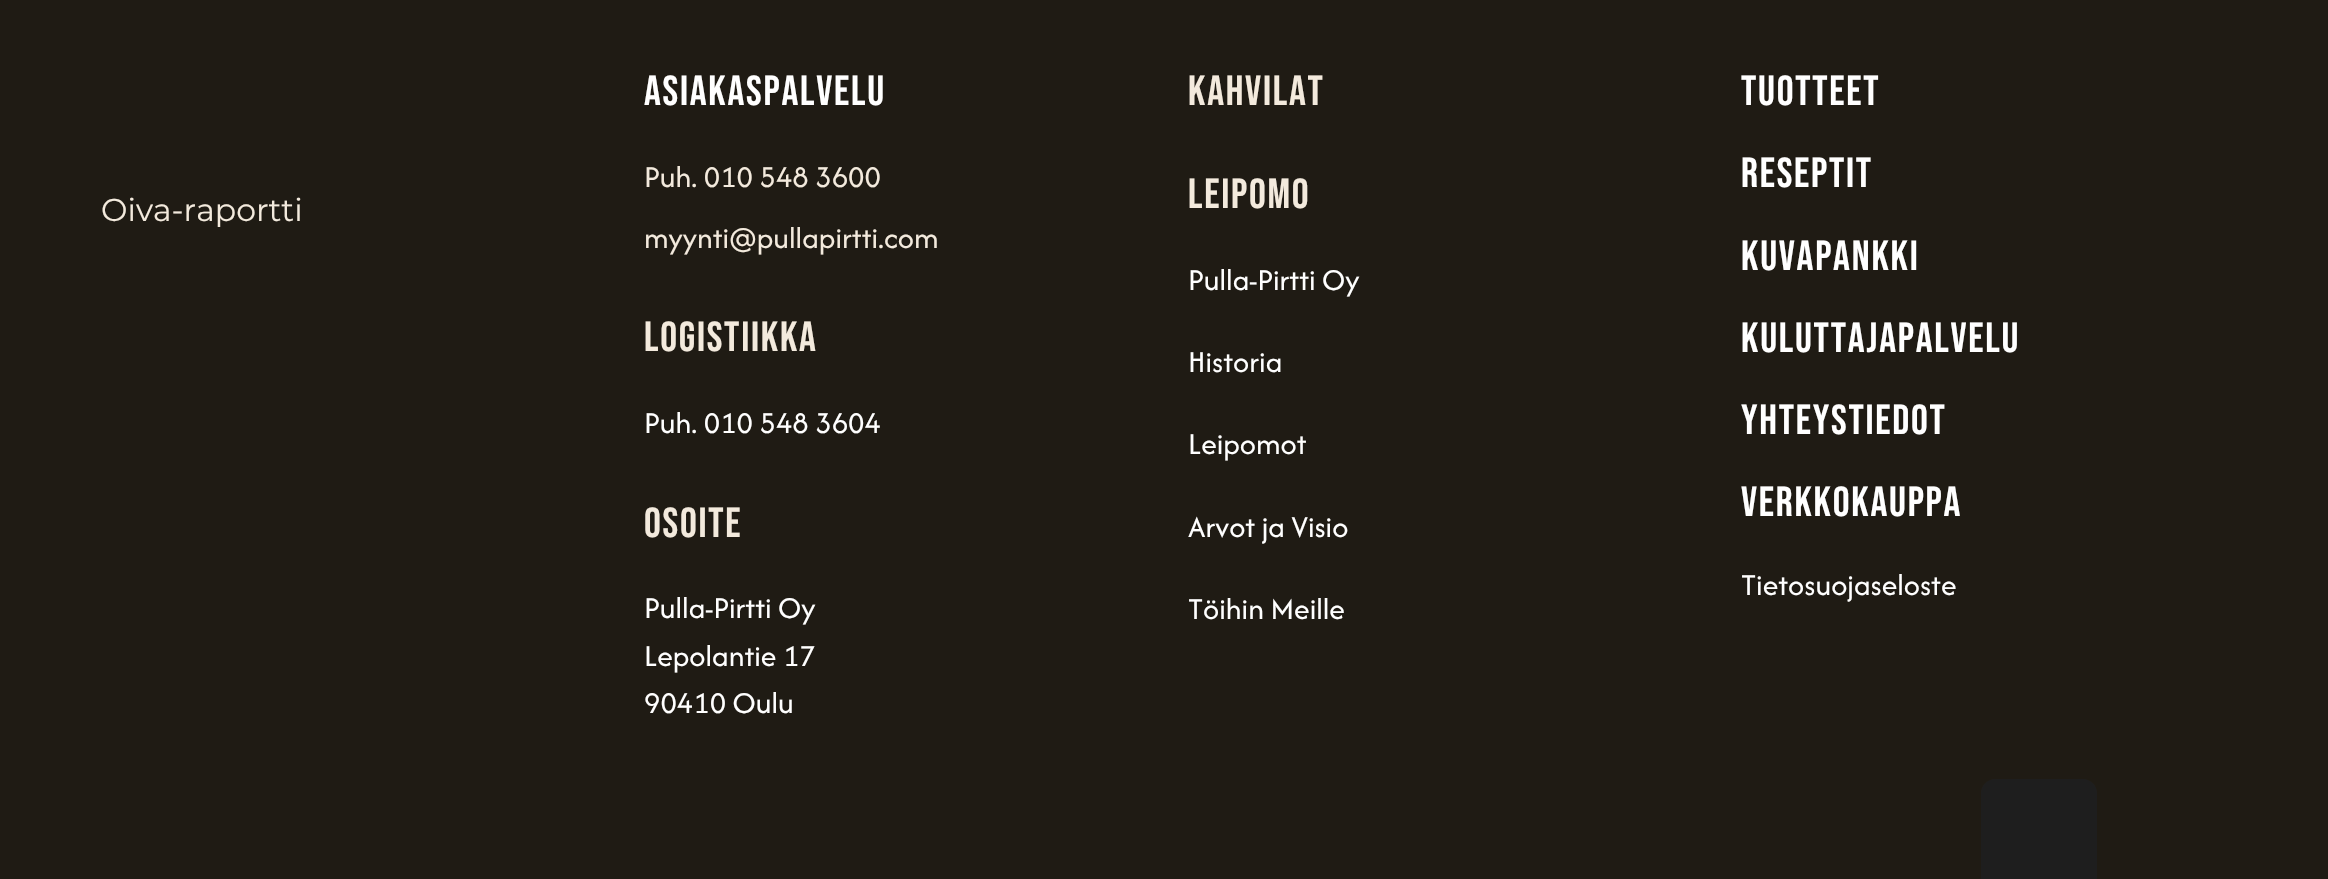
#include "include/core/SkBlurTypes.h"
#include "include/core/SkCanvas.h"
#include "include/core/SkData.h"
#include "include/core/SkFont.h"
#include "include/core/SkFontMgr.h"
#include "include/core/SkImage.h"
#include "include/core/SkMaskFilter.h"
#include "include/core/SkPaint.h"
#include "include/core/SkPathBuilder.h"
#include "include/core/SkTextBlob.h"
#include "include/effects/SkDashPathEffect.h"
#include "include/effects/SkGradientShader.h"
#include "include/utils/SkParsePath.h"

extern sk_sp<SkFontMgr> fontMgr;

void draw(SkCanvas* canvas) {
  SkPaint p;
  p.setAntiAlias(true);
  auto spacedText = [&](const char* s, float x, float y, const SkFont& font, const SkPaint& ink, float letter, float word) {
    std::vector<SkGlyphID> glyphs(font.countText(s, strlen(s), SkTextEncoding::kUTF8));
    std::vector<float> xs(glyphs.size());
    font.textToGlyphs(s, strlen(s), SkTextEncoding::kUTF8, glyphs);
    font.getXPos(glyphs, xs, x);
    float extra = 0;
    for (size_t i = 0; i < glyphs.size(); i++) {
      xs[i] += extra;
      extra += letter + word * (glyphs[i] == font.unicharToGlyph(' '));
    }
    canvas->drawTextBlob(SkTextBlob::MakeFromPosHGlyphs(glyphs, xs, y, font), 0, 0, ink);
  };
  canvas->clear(SkColorSetRGB(31, 27, 20));
  p.setColor(SkColorSetRGB(30, 30, 30));
  canvas->drawPath(SkPathBuilder().moveTo(1995, 779).lineTo(2083, 779).cubicTo(2090.5f, 779, 2097, 785.5f, 2097, 793).lineTo(2097, 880).lineTo(1981, 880).lineTo(1981, 793).cubicTo(1981, 785.5f, 1987.5f, 779, 1995, 779).close().detach(), p);
  SkFont font1(fontMgr->matchFamilyStyle("Montserrat", SkFontStyle::Normal()), 31.5f);
  font1.setSubpixel(true);
  p.setColor(SkColorSetRGB(243, 234, 221));
  canvas->drawString("Oiva-raportti", 101, 221, font1, p);
  SkFont font2(fontMgr->matchFamilyStyle("Bebas Neue", SkFontStyle::Normal()), 42);
  font2.setSubpixel(true);
  p.setColor(SK_ColorWHITE);
  spacedText("Asiakaspalvelu", 644, 105, font2, p, 1.75f, 0);
  SkFont font3(fontMgr->matchFamilyStyle("Afacad", SkFontStyle::Normal()), 31.5f);
  font3.setSubpixel(true);
  p.setColor(SkColorSetRGB(243, 234, 221));
  canvas->drawString("Puh. 010 548 3600", 644, 187, font3, p);
  canvas->drawString("myynti@pullapirtti.com", 644, 248, font3, p);
  spacedText("Logistiikka", 644, 351, font2, p, 1.75f, 0);
  p.setColor(SK_ColorWHITE);
  canvas->drawString("Puh. 010 548 3604", 644, 433, font3, p);
  p.setColor(SkColorSetRGB(243, 234, 221));
  spacedText("OSOITE", 644, 537, font2, p, 1.75f, 0);
  p.setColor(SK_ColorWHITE);
  canvas->drawString("Pulla-Pirtti Oy", 644, 618, font3, p);
  canvas->drawString("Lepolantie 17", 644, 666, font3, p);
  canvas->drawString("90410 Oulu", 644, 713, font3, p);
  p.setColor(SkColorSetRGB(243, 234, 221));
  spacedText("Kahvilat", 1188, 105, font2, p, 1.75f, 0);
  spacedText("Leipomo", 1188, 208, font2, p, 1.75f, 0);
  p.setColor(SK_ColorWHITE);
  canvas->drawString("Pulla-Pirtti Oy", 1188, 290, font3, p);
  canvas->drawString("Historia", 1188, 372, font3, p);
  canvas->drawString("Leipomot", 1188, 454, font3, p);
  canvas->drawString("Arvot ja Visio", 1188, 537, font3, p);
  canvas->drawString("Töihin Meille", 1188, 619, font3, p);
  spacedText("TUOTTEET", 1741, 105, font2, p, 1.75f, 0);
  spacedText("RESEPTIT", 1741, 187, font2, p, 1.75f, 0);
  spacedText("KUVAPANKKI", 1741, 270, font2, p, 1.75f, 0);
  spacedText("KULUTTAJAPALVELU", 1741, 352, font2, p, 1.75f, 0);
  spacedText("YHTEYSTIEDOT", 1741, 434, font2, p, 1.75f, 0);
  spacedText("VERKKOKAUPPA", 1741, 516, font2, p, 1.75f, 0);
  canvas->drawString("Tietosuojaseloste", 1741, 595, font3, p);
}
